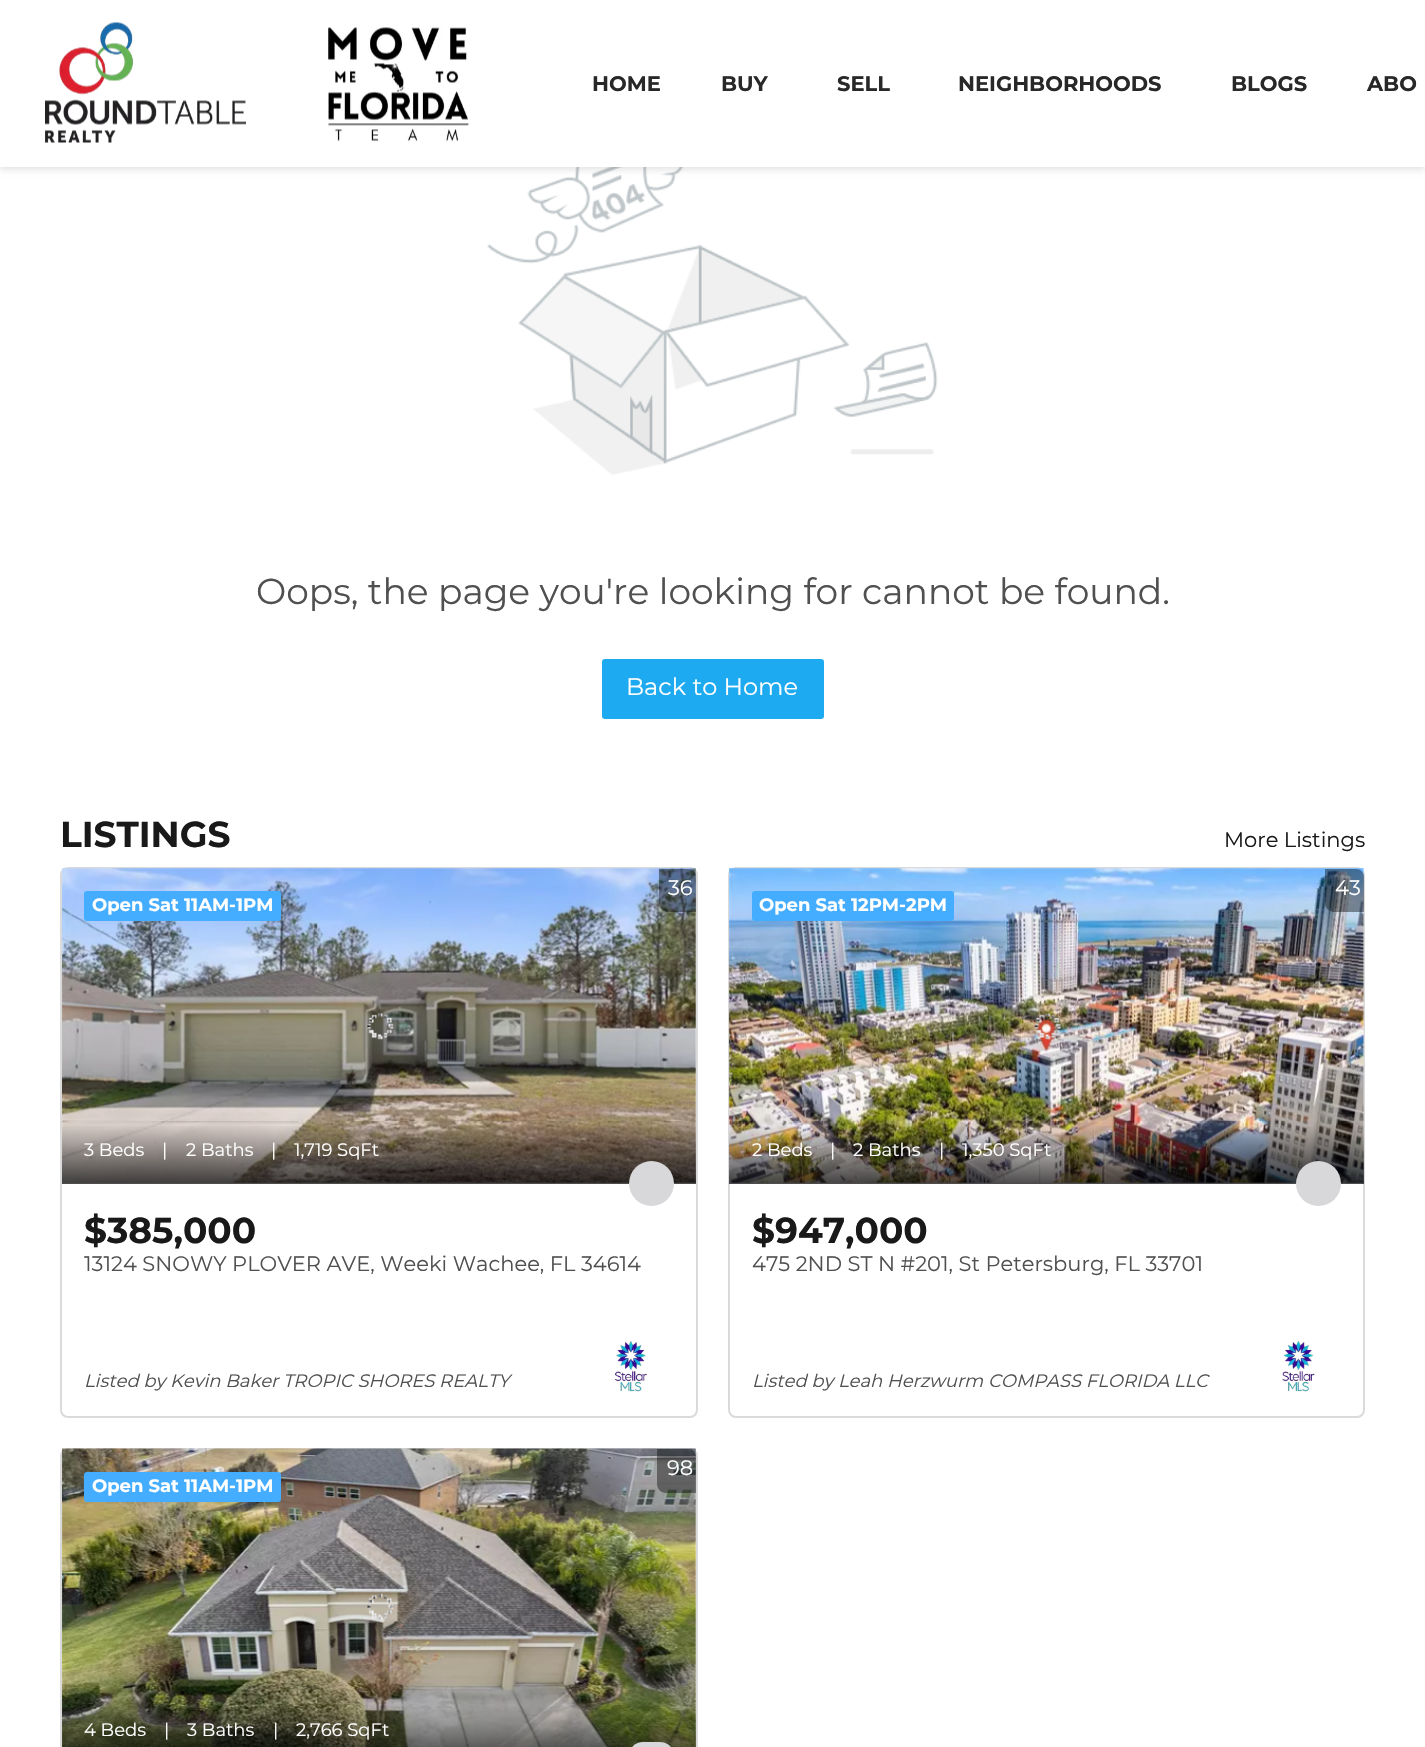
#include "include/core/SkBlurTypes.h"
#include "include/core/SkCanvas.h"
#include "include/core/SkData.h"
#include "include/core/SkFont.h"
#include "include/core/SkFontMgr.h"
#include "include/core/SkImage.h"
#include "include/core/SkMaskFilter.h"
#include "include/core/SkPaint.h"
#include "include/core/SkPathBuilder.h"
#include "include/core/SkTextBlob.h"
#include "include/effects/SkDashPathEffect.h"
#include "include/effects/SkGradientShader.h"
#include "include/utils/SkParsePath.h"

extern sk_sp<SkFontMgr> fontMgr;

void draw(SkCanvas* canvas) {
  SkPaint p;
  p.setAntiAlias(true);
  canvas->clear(SK_ColorWHITE);
  canvas->drawImageRect(SkImages::DeferredFromEncodedData(SkData::MakeFromFileName("images/3.png")), SkRect::MakeLTRB(487, 167, 938, 475), SkSamplingOptions());
  p.setColor(SkColorSetARGB(26, 0, 0, 0));
  p.setMaskFilter(SkMaskFilter::MakeBlur(kNormal_SkBlurStyle, 3));
  canvas->drawRect(SkRect::MakeLTRB(0, 3, 1425, 170), p);
  p.setMaskFilter(nullptr);
  p.setColor(SK_ColorWHITE);
  canvas->drawRect(SkRect::MakeLTRB(0, 0, 1425, 167), p);
  canvas->drawImageRect(SkImages::DeferredFromEncodedData(SkData::MakeFromFileName("images/1.png")), SkRect::MakeLTRB(45, 22, 246, 143), SkSamplingOptions());
  canvas->drawImageRect(SkImages::DeferredFromEncodedData(SkData::MakeFromFileName("images/2.png")), SkRect::MakeLTRB(328, 27, 469, 142), SkSamplingOptions());
  p.setColor(SkColorSetRGB(29, 170, 240));
  canvas->drawRoundRect(SkRect::MakeLTRB(602, 659, 824, 719), 3, 3, p);
  p.setStyle(SkPaint::kStroke_Style);
  p.setStrokeWidth(2);
  p.setColor(SkColorSetRGB(218, 218, 218));
  canvas->drawRoundRect(SkRect::MakeLTRB(61, 868, 697, 1417), 7, 7, p);
  canvas->drawImageRect(SkImages::DeferredFromEncodedData(SkData::MakeFromFileName("images/4.png")), SkRect::MakeLTRB(62, 868, 696, 1183), SkSamplingOptions());
  canvas->drawImageRect(SkImages::DeferredFromEncodedData(SkData::MakeFromFileName("images/5.png")), SkRect::MakeLTRB(367, 1013, 394, 1040), SkSamplingOptions());
  p.setStyle(SkPaint::kFill_Style);
  p.setColor(SkColorSetARGB(102, 0, 0, 0));
  canvas->drawPath(SkPathBuilder().moveTo(659, 869).lineTo(688, 869).cubicTo(692.5f, 869, 696, 872.5f, 696, 877).lineTo(696, 912).lineTo(668, 912).cubicTo(663, 912, 659, 908, 659, 903).close().detach(), p);
  {
    const SkColor colors[] = {SkColorSetARGB(0, 0, 0, 0), SkColorSetARGB(179, 0, 0, 0)};
    const float stops[] = {0, 1};
    const SkPoint ends[] = {{379, 1124}, {379, 1184}};
    p.setShader(SkGradientShader::MakeLinear(ends, colors, stops, 2, SkTileMode::kClamp));
    p.setAlpha(255);
  }
  canvas->drawRect(SkRect::MakeLTRB(62, 1126, 696, 1184), p);
  p.setShader(nullptr);
  p.setColor(SkColorSetRGB(69, 173, 255));
  canvas->drawRoundRect(SkRect::MakeLTRB(84, 891, 281, 921), 3, 3, p);
  p.setColor(SkColorSetRGB(216, 216, 219));
  canvas->drawCircle(651.5f, 1183.5f, 22.5f, p);
  canvas->drawImageRect(SkImages::DeferredFromEncodedData(SkData::MakeFromFileName("images/6.png")), SkRect::MakeLTRB(614, 1341, 647, 1392), SkSamplingOptions());
  p.setStyle(SkPaint::kStroke_Style);
  p.setColor(SkColorSetRGB(218, 218, 218));
  canvas->drawRoundRect(SkRect::MakeLTRB(729, 868, 1364, 1417), 7, 7, p);
  canvas->drawImageRect(SkImages::DeferredFromEncodedData(SkData::MakeFromFileName("images/7.png")), SkRect::MakeLTRB(729, 868, 1364, 1183), SkSamplingOptions());
  canvas->drawImageRect(SkImages::DeferredFromEncodedData(SkData::MakeFromFileName("images/8.png")), SkRect::MakeLTRB(1034, 1013, 1062, 1040), SkSamplingOptions());
  p.setStyle(SkPaint::kFill_Style);
  p.setColor(SkColorSetARGB(102, 0, 0, 0));
  canvas->drawPath(SkPathBuilder().moveTo(1325, 869).lineTo(1356, 869).cubicTo(1360.5f, 869, 1364, 872.5f, 1364, 877).lineTo(1364, 912).lineTo(1334, 912).cubicTo(1329, 912, 1325, 908, 1325, 903).close().detach(), p);
  {
    const SkColor colors[] = {SkColorSetARGB(0, 0, 0, 0), SkColorSetARGB(179, 0, 0, 0)};
    const float stops[] = {0, 1};
    const SkPoint ends[] = {{1046, 1124}, {1046, 1184}};
    p.setShader(SkGradientShader::MakeLinear(ends, colors, stops, 2, SkTileMode::kClamp));
    p.setAlpha(255);
  }
  canvas->drawRect(SkRect::MakeLTRB(729, 1126, 1364, 1184), p);
  p.setShader(nullptr);
  p.setColor(SkColorSetRGB(69, 173, 255));
  canvas->drawRoundRect(SkRect::MakeLTRB(752, 891, 954, 921), 3, 3, p);
  p.setColor(SkColorSetRGB(216, 216, 219));
  canvas->drawCircle(1318.5f, 1183.5f, 22.5f, p);
  canvas->drawImageRect(SkImages::DeferredFromEncodedData(SkData::MakeFromFileName("images/9.png")), SkRect::MakeLTRB(1282, 1341, 1315, 1392), SkSamplingOptions());
  p.setStyle(SkPaint::kStroke_Style);
  p.setColor(SkColorSetRGB(218, 218, 218));
  canvas->drawRoundRect(SkRect::MakeLTRB(61, 1449, 697, 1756), 7, 7, p);
  canvas->drawImageRect(SkImages::DeferredFromEncodedData(SkData::MakeFromFileName("images/10.png")), SkRect::MakeLTRB(62, 1448, 696, 1747), SkSamplingOptions());
  canvas->drawImageRect(SkImages::DeferredFromEncodedData(SkData::MakeFromFileName("images/11.png")), SkRect::MakeLTRB(367, 1593, 394, 1620), SkSamplingOptions());
  p.setStyle(SkPaint::kFill_Style);
  p.setColor(SkColorSetARGB(102, 0, 0, 0));
  canvas->drawPath(SkPathBuilder().moveTo(657, 1449).lineTo(688, 1449).cubicTo(692.5f, 1449, 696, 1452.5f, 696, 1457).lineTo(696, 1493).lineTo(666, 1493).cubicTo(661, 1493, 657, 1489, 657, 1484).close().detach(), p);
  {
    const SkColor colors[] = {SkColorSetARGB(0, 0, 0, 0), SkColorSetARGB(179, 0, 0, 0)};
    const float stops[] = {0, 1};
    const SkPoint ends[] = {{379, 1704}, {379, 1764}};
    p.setShader(SkGradientShader::MakeLinear(ends, colors, stops, 2, SkTileMode::kClamp));
    p.setAlpha(255);
  }
  canvas->drawRect(SkRect::MakeLTRB(62, 1706, 696, 1747), p);
  p.setShader(nullptr);
  p.setColor(SkColorSetRGB(69, 173, 255));
  canvas->drawRoundRect(SkRect::MakeLTRB(84, 1472, 281, 1502), 3, 3, p);
  p.setColor(SkColorSetRGB(216, 216, 219));
  canvas->drawRoundRect(SkRect::MakeLTRB(629, 1742, 674, 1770), 22.5f, 22.5f, p);
  SkFont font1(fontMgr->matchFamilyStyle("Montserrat", SkFontStyle::Bold()), 21);
  font1.setSubpixel(true);
  p.setColor(SkColorSetRGB(40, 40, 40));
  canvas->drawString("HOME", 592, 91, font1, p);
  canvas->drawString("BUY", 721, 91, font1, p);
  canvas->drawString("SELL", 837, 91, font1, p);
  canvas->drawString("NEIGHBORHOODS", 958, 91, font1, p);
  canvas->drawString("BLOGS", 1231, 91, font1, p);
  canvas->drawString("ABO", 1367, 91, font1, p);
  SkFont font2(fontMgr->matchFamilyStyle("Montserrat", SkFontStyle::Normal()), 36);
  font2.setSubpixel(true);
  p.setColor(SkColorSetRGB(80, 80, 80));
  canvas->drawString("Oops, the page you're looking for cannot be found.", 256, 604, font2, p);
  SkFont font3(fontMgr->matchFamilyStyle("Montserrat", SkFontStyle::Normal()), 24);
  font3.setSubpixel(true);
  p.setColor(SK_ColorWHITE);
  canvas->drawString("Back to Home", 626, 695, font3, p);
  SkFont font4(fontMgr->matchFamilyStyle("Montserrat", SkFontStyle::Bold()), 36);
  font4.setSubpixel(true);
  p.setColor(SkColorSetRGB(25, 25, 25));
  canvas->drawString("LISTINGS", 60, 847, font4, p);
  SkFont font5(fontMgr->matchFamilyStyle("Montserrat", SkFontStyle::Normal()), 21);
  font5.setSubpixel(true);
  canvas->drawString("More Listings", 1224, 847, font5, p);
  p.setColor(SK_ColorWHITE);
  canvas->drawString("36", 668, 895, font5, p);
  SkFont font6(fontMgr->matchFamilyStyle("Montserrat", SkFontStyle::Normal()), 18);
  font6.setSubpixel(true);
  canvas->drawString("3 Beds", 84, 1156, font6, p);
  canvas->drawString("|", 162, 1156, font6, p);
  canvas->drawString("2 Baths", 186, 1156, font6, p);
  canvas->drawString("|", 271, 1156, font6, p);
  canvas->drawString("1,719 SqFt", 294, 1156, font6, p);
  SkFont font7(fontMgr->matchFamilyStyle("Montserrat", SkFontStyle::Bold()), 18);
  font7.setSubpixel(true);
  canvas->drawString("Open Sat 11AM-1PM", 92, 911, font7, p);
  p.setColor(SkColorSetRGB(25, 25, 25));
  canvas->drawString("$385,000", 84, 1243, font4, p);
  p.setColor(SkColorSetRGB(80, 80, 80));
  canvas->drawString("13124 SNOWY PLOVER AVE, Weeki Wachee, FL 34614", 84, 1271, font5, p);
  SkFont font8(fontMgr->matchFamilyStyle("Montserrat", SkFontStyle::Italic()), 18);
  font8.setSubpixel(true);
  canvas->drawString("Listed by Kevin Baker TROPIC SHORES REALTY", 84, 1387, font8, p);
  p.setColor(SK_ColorWHITE);
  canvas->drawString("43", 1335, 895, font5, p);
  canvas->drawString("2 Beds", 752, 1156, font6, p);
  canvas->drawString("|", 830, 1156, font6, p);
  canvas->drawString("2 Baths", 853, 1156, font6, p);
  canvas->drawString("|", 939, 1156, font6, p);
  canvas->drawString("1,350 SqFt", 962, 1156, font6, p);
  canvas->drawString("Open Sat 12PM-2PM", 759, 911, font7, p);
  p.setColor(SkColorSetRGB(25, 25, 25));
  canvas->drawString("$947,000", 752, 1243, font4, p);
  p.setColor(SkColorSetRGB(80, 80, 80));
  canvas->drawString("475 2ND ST N #201, St Petersburg, FL 33701", 752, 1271, font5, p);
  canvas->drawString("Listed by Leah Herzwurm COMPASS FLORIDA LLC", 752, 1387, font8, p);
  p.setColor(SK_ColorWHITE);
  canvas->drawString("98", 667, 1475, font5, p);
  canvas->drawString("4 Beds", 84, 1736, font6, p);
  canvas->drawString("|", 164, 1736, font6, p);
  canvas->drawString("3 Baths", 187, 1736, font6, p);
  canvas->drawString("|", 273, 1736, font6, p);
  canvas->drawString("2,766 SqFt", 296, 1736, font6, p);
  canvas->drawString("Open Sat 11AM-1PM", 92, 1492, font7, p);
}
